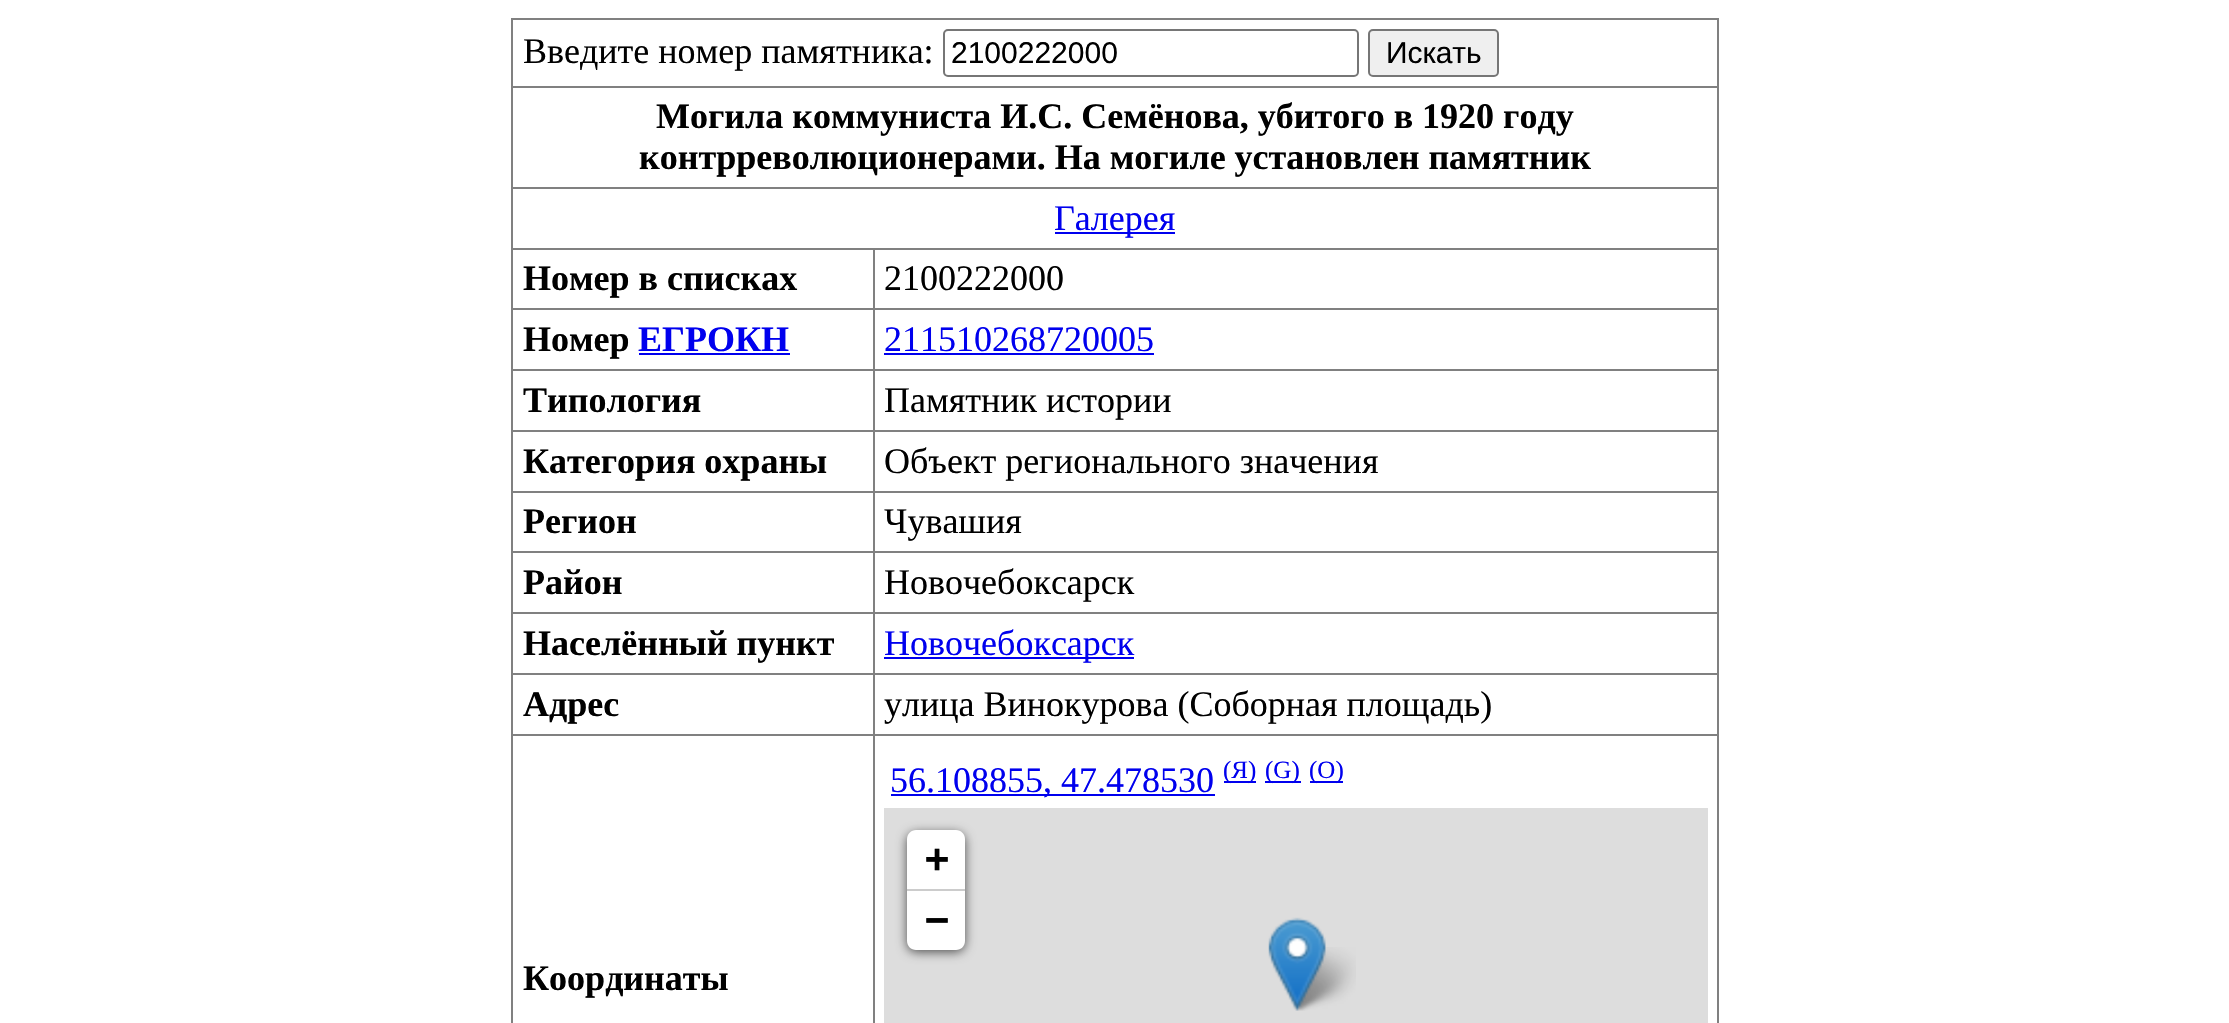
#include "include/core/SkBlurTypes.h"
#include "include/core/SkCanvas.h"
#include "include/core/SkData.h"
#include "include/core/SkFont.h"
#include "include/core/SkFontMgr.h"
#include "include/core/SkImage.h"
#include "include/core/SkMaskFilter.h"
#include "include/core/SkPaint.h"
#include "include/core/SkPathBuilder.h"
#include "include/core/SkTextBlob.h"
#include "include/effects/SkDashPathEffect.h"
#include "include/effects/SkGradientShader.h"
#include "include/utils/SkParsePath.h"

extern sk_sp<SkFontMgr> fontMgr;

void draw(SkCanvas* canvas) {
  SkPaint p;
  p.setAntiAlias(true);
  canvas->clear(SK_ColorWHITE);
  p.setColor(SkColorSetRGB(128, 128, 128));
  canvas->drawRect(SkRect::MakeLTRB(511, 18, 1719, 20), p);
  canvas->drawRect(SkRect::MakeLTRB(1717, 18, 1719, 1023), p);
  canvas->drawRect(SkRect::MakeLTRB(511, 18, 513, 1023), p);
  p.setStyle(SkPaint::kStroke_Style);
  p.setStrokeWidth(2);
  p.setColor(SkColorSetRGB(118, 118, 118));
  canvas->drawRoundRect(SkRect::MakeLTRB(944, 30, 1358, 76), 4, 4, p);
  p.setStyle(SkPaint::kFill_Style);
  p.setColor(SkColorSetRGB(239, 239, 239));
  canvas->drawRoundRect(SkRect::MakeLTRB(1369, 30, 1498, 76), 4, 4, p);
  p.setStyle(SkPaint::kStroke_Style);
  p.setColor(SkColorSetRGB(118, 118, 118));
  canvas->drawRoundRect(SkRect::MakeLTRB(1369, 30, 1498, 76), 4, 4, p);
  p.setStyle(SkPaint::kFill_Style);
  p.setColor(SkColorSetRGB(128, 128, 128));
  canvas->drawRect(SkRect::MakeLTRB(511, 86, 1719, 88), p);
  canvas->drawRect(SkRect::MakeLTRB(511, 187, 1719, 189), p);
  p.setColor(SkColorSetRGB(0, 0, 238));
  canvas->drawRect(SkRect::MakeLTRB(1055, 232, 1175, 234), p);
  p.setColor(SkColorSetRGB(128, 128, 128));
  canvas->drawRect(SkRect::MakeLTRB(873, 248, 1719, 250), p);
  canvas->drawRect(SkRect::MakeLTRB(873, 308, 1719, 310), p);
  canvas->drawRect(SkRect::MakeLTRB(873, 369, 1719, 371), p);
  canvas->drawRect(SkRect::MakeLTRB(873, 430, 1719, 432), p);
  canvas->drawRect(SkRect::MakeLTRB(873, 491, 1719, 493), p);
  canvas->drawRect(SkRect::MakeLTRB(873, 551, 1719, 553), p);
  canvas->drawRect(SkRect::MakeLTRB(873, 612, 1719, 614), p);
  canvas->drawRect(SkRect::MakeLTRB(873, 673, 1719, 675), p);
  canvas->drawRect(SkRect::MakeLTRB(873, 734, 1719, 736), p);
  canvas->drawRect(SkRect::MakeLTRB(873, 734, 875, 1023), p);
  canvas->drawRect(SkRect::MakeLTRB(511, 734, 875, 736), p);
  canvas->drawRect(SkRect::MakeLTRB(873, 673, 875, 736), p);
  canvas->drawRect(SkRect::MakeLTRB(511, 673, 875, 675), p);
  canvas->drawRect(SkRect::MakeLTRB(873, 612, 875, 675), p);
  canvas->drawRect(SkRect::MakeLTRB(511, 612, 875, 614), p);
  canvas->drawRect(SkRect::MakeLTRB(873, 551, 875, 614), p);
  canvas->drawRect(SkRect::MakeLTRB(511, 551, 875, 553), p);
  canvas->drawRect(SkRect::MakeLTRB(873, 491, 875, 554), p);
  canvas->drawRect(SkRect::MakeLTRB(511, 491, 875, 493), p);
  canvas->drawRect(SkRect::MakeLTRB(873, 430, 875, 493), p);
  canvas->drawRect(SkRect::MakeLTRB(511, 430, 875, 432), p);
  canvas->drawRect(SkRect::MakeLTRB(873, 369, 875, 432), p);
  canvas->drawRect(SkRect::MakeLTRB(511, 369, 875, 371), p);
  canvas->drawRect(SkRect::MakeLTRB(873, 308, 875, 371), p);
  canvas->drawRect(SkRect::MakeLTRB(511, 308, 875, 310), p);
  canvas->drawRect(SkRect::MakeLTRB(873, 248, 875, 311), p);
  canvas->drawRect(SkRect::MakeLTRB(511, 248, 875, 250), p);
  p.setColor(SkColorSetRGB(0, 0, 238));
  canvas->drawRect(SkRect::MakeLTRB(639, 353, 790, 355), p);
  canvas->drawRect(SkRect::MakeLTRB(884, 353, 1154, 355), p);
  canvas->drawRect(SkRect::MakeLTRB(884, 657, 1134, 659), p);
  canvas->drawRect(SkRect::MakeLTRB(891, 794, 1215, 796), p);
  canvas->drawRect(SkRect::MakeLTRB(1224, 781, 1256, 783), p);
  canvas->drawRect(SkRect::MakeLTRB(1265, 781, 1301, 783), p);
  canvas->drawRect(SkRect::MakeLTRB(1310, 781, 1343, 783), p);
  p.setColor(SkColorSetRGB(221, 221, 221));
  canvas->drawRect(SkRect::MakeLTRB(884, 808, 1708, 1023), p);
  p.setColor(SkColorSetARGB(166, 0, 0, 0));
  p.setMaskFilter(SkMaskFilter::MakeBlur(kNormal_SkBlurStyle, 5.5f));
  canvas->drawRoundRect(SkRect::MakeLTRB(907, 833, 965, 952), 9, 9, p);
  p.setMaskFilter(nullptr);
  p.setColor(SK_ColorWHITE);
  canvas->drawPath(SkPathBuilder().moveTo(916, 830).lineTo(956, 830).cubicTo(961, 830, 965, 834, 965, 839).lineTo(965, 891).lineTo(907, 891).lineTo(907, 839).cubicTo(907, 834, 911, 830, 916, 830).close().detach(), p);
  p.setColor(SkColorSetRGB(204, 204, 204));
  canvas->drawRect(SkRect::MakeLTRB(907, 889, 965, 891), p);
  p.setColor(SK_ColorWHITE);
  canvas->drawPath(SkPathBuilder().moveTo(907, 891).lineTo(965, 891).lineTo(965, 941).cubicTo(965, 946, 961, 950, 956, 950).lineTo(916, 950).cubicTo(911, 950, 907, 946, 907, 941).close().detach(), p);
  canvas->drawImageRect(SkImages::DeferredFromEncodedData(SkData::MakeFromFileName("images/2.png")), SkRect::MakeLTRB(1289, 947, 1356, 1011), SkSamplingOptions());
  canvas->drawImageRect(SkImages::DeferredFromEncodedData(SkData::MakeFromFileName("images/1.png")), SkRect::MakeLTRB(1268, 917, 1326, 1011), SkSamplingOptions());
  SkFont font1(fontMgr->matchFamilyStyle("Liberation Serif", SkFontStyle::Normal()), 36);
  font1.setSubpixel(true);
  p.setColor(SK_ColorBLACK);
  canvas->drawString("Введите номер памятника:", 523, 63, font1, p);
  SkFont font2(fontMgr->matchFamilyStyle("Liberation Sans", SkFontStyle::Normal()), 30);
  font2.setSubpixel(true);
  canvas->drawString("2100222000", 951, 63, font2, p);
  canvas->drawString("Искать", 1386, 63, font2, p);
  SkFont font3(fontMgr->matchFamilyStyle("Liberation Serif", SkFontStyle::Bold()), 36);
  font3.setSubpixel(true);
  canvas->drawString("Могила коммуниста И.С. Семёнова, убитого в 1920 году", 656, 128, font3, p);
  canvas->drawString("контрреволюционерами. На могиле установлен памятник", 639, 169, font3, p);
  p.setColor(SkColorSetRGB(0, 0, 238));
  canvas->drawString("Галерея", 1054, 230, font1, p);
  p.setColor(SK_ColorBLACK);
  canvas->drawString("Номер в списках", 523, 290, font3, p);
  canvas->drawString("2100222000", 884, 290, font1, p);
  canvas->drawString("Номер", 523, 351, font3, p);
  p.setColor(SkColorSetRGB(0, 0, 238));
  canvas->drawString("ЕГРОКН", 638, 351, font3, p);
  canvas->drawString("211510268720005", 884, 351, font1, p);
  p.setColor(SK_ColorBLACK);
  canvas->drawString("Типология", 523, 412, font3, p);
  canvas->drawString("Памятник истории", 884, 412, font1, p);
  canvas->drawString("Категория охраны", 523, 473, font3, p);
  canvas->drawString("Объект регионального значения", 884, 473, font1, p);
  canvas->drawString("Регион", 523, 533, font3, p);
  canvas->drawString("Чувашия", 884, 533, font1, p);
  canvas->drawString("Район", 523, 594, font3, p);
  canvas->drawString("Новочебоксарск", 884, 594, font1, p);
  canvas->drawString("Населённый пункт", 523, 655, font3, p);
  p.setColor(SkColorSetRGB(0, 0, 238));
  canvas->drawString("Новочебоксарск", 884, 655, font1, p);
  p.setColor(SK_ColorBLACK);
  canvas->drawString("Адрес", 523, 716, font3, p);
  canvas->drawString("улица Винокурова (Соборная площадь)", 884, 716, font1, p);
  p.setColor(SkColorSetRGB(0, 0, 238));
  canvas->drawString("56.108855, 47.478530", 890, 792, font1, p);
  SkFont font4(fontMgr->matchFamilyStyle("Liberation Serif", SkFontStyle::Normal()), 25);
  font4.setSubpixel(true);
  canvas->drawString("(Я)", 1223, 778, font4, p);
  canvas->drawString("(G)", 1265, 778, font4, p);
  canvas->drawString("(O)", 1309, 778, font4, p);
  SkFont font5(fontMgr->matchFamilyStyle("DejaVu Sans Mono", SkFontStyle::Bold()), 40);
  font5.setSubpixel(true);
  p.setColor(SK_ColorBLACK);
  canvas->drawString("+", 925, 872, font5, p);
  canvas->drawString("−", 925, 933, font5, p);
  canvas->drawString("Координаты", 523, 990, font3, p);
}
